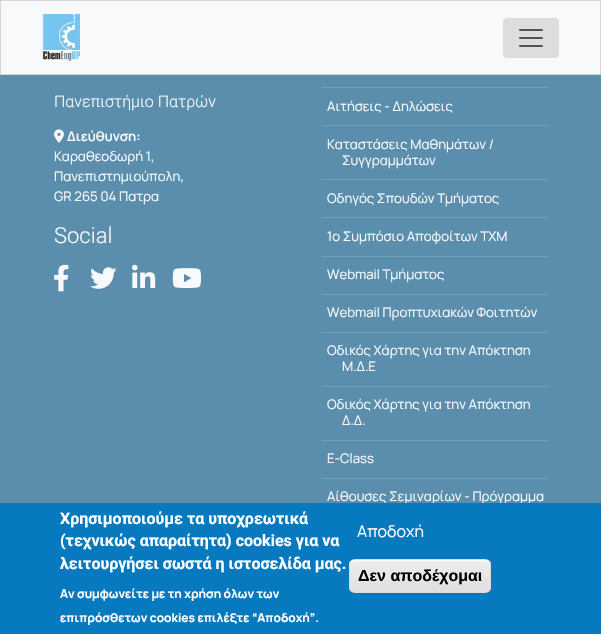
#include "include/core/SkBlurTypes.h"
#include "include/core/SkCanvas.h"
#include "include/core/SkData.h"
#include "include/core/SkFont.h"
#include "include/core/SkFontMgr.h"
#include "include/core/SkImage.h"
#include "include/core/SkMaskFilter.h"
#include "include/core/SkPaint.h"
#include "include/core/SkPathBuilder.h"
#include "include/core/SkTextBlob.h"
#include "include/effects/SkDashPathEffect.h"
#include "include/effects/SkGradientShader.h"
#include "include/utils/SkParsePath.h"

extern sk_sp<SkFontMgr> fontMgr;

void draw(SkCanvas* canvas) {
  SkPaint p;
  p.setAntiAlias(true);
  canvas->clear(SkColorSetRGB(90, 142, 172));
  p.setColor(SkColorSetRGB(248, 249, 250));
  canvas->drawRect(SkRect::MakeLTRB(0.5f, 0.5f, 600.5f, 74.5f), p);
  p.setStyle(SkPaint::kStroke_Style);
  p.setStrokeWidth(1);
  p.setColor(SkColorSetRGB(213, 213, 213));
  canvas->drawRect(SkRect::MakeLTRB(0.5f, 0.5f, 600.5f, 74.5f), p);
  canvas->drawImageRect(SkImages::DeferredFromEncodedData(SkData::MakeFromFileName("images/1.png")), SkRect::MakeLTRB(42, 14, 80, 61), SkSamplingOptions());
  p.setStyle(SkPaint::kFill_Style);
  p.setColor(SkColorSetRGB(221, 221, 221));
  canvas->drawRoundRect(SkRect::MakeLTRB(503, 18, 559, 58), 4, 4, p);
  canvas->drawImageRect(SkImages::DeferredFromEncodedData(SkData::MakeFromFileName("images/2.png")), SkRect::MakeLTRB(519, 29, 543, 47), SkSamplingOptions());
  canvas->drawImageRect(SkImages::DeferredFromEncodedData(SkData::MakeFromFileName("images/3.png")), SkRect::MakeLTRB(54, 129, 64, 143), SkSamplingOptions());
  canvas->drawImageRect(SkImages::DeferredFromEncodedData(SkData::MakeFromFileName("images/4.png")), SkRect::MakeLTRB(54, 264, 69, 292), SkSamplingOptions());
  canvas->drawImageRect(SkImages::DeferredFromEncodedData(SkData::MakeFromFileName("images/5.png")), SkRect::MakeLTRB(90, 267, 117, 289), SkSamplingOptions());
  canvas->drawImageRect(SkImages::DeferredFromEncodedData(SkData::MakeFromFileName("images/6.png")), SkRect::MakeLTRB(132, 264, 156, 288), SkSamplingOptions());
  canvas->drawImageRect(SkImages::DeferredFromEncodedData(SkData::MakeFromFileName("images/7.png")), SkRect::MakeLTRB(172, 268, 202, 288), SkSamplingOptions());
  p.setColor(SkColorSetRGB(115, 159, 184));
  canvas->drawRect(SkRect::MakeLTRB(322, 87, 548, 88), p);
  canvas->drawRect(SkRect::MakeLTRB(322, 125, 548, 126), p);
  canvas->drawRect(SkRect::MakeLTRB(322, 179, 548, 180), p);
  canvas->drawRect(SkRect::MakeLTRB(322, 217, 548, 218), p);
  canvas->drawRect(SkRect::MakeLTRB(322, 256, 548, 257), p);
  canvas->drawRect(SkRect::MakeLTRB(322, 294, 548, 295), p);
  canvas->drawRect(SkRect::MakeLTRB(322, 332, 548, 333), p);
  canvas->drawRect(SkRect::MakeLTRB(322, 386, 548, 387), p);
  canvas->drawRect(SkRect::MakeLTRB(322, 440, 548, 441), p);
  canvas->drawRect(SkRect::MakeLTRB(322, 478, 548, 479), p);
  SkFont font1(fontMgr->matchFamilyStyle("Roboto", SkFontStyle(300, SkFontStyle::kNormal_Width, SkFontStyle::kUpright_Slant)), 16);
  font1.setSubpixel(true);
  p.setColor(SkColorSetRGB(248, 249, 250));
  canvas->drawString("Πανεπιστήμιο Πατρών", 54, 107, font1, p);
  SkFont font2(fontMgr->matchFamilyStyle("Manrope", SkFontStyle(600, SkFontStyle::kNormal_Width, SkFontStyle::kUpright_Slant)), 13.25f);
  font2.setSubpixel(true);
  canvas->drawString("Διεύθυνση:", 67, 141, font2, p);
  SkFont font3(fontMgr->matchFamilyStyle("Manrope", SkFontStyle::Normal()), 13.25f);
  font3.setSubpixel(true);
  canvas->drawString("Καραθεοδωρή 1,", 54, 161, font3, p);
  canvas->drawString("Πανεπιστημιούπολη,", 54, 181, font3, p);
  canvas->drawString("GR 265 04 Πατρα", 54, 201, font3, p);
  SkFont font4(fontMgr->matchFamilyStyle("Roboto", SkFontStyle(300, SkFontStyle::kNormal_Width, SkFontStyle::kUpright_Slant)), 22);
  font4.setSubpixel(true);
  canvas->drawString("Social", 54, 243, font4, p);
  canvas->drawString("Αιτήσεις - Δηλώσεις", 327, 111, font3, p);
  canvas->drawString("Kαταστάσεις Μαθημάτων /", 327, 149, font3, p);
  canvas->drawString("Συγγραμμάτων", 342, 165, font3, p);
  canvas->drawString("Οδηγός Σπουδών Τμήματος", 327, 203, font3, p);
  canvas->drawString("1o Συμπόσιο Αποφοίτων ΤΧΜ", 327, 241, font3, p);
  canvas->drawString("Webmail Τμήματος", 327, 279, font3, p);
  canvas->drawString("Webmail Προπτυχιακών Φοιτητών", 327, 317, font3, p);
  canvas->drawString("Οδικός Χάρτης για την Απόκτηση", 327, 355, font3, p);
  canvas->drawString("Μ.Δ.Ε", 342, 371, font3, p);
  canvas->drawString("Οδικός Χάρτης για την Απόκτηση", 327, 409, font3, p);
  canvas->drawString("Δ.Δ.", 342, 425, font3, p);
  canvas->drawString("E-Class", 327, 463, font3, p);
  canvas->drawString("Αίθουσες Σεμιναρίων - Πρόγραμμα", 327, 501, font3, p);
  p.setColor(SkColorSetRGB(7, 121, 191));
  canvas->drawRect(SkRect::MakeLTRB(0, 503, 601, 634), p);
  SkFont font5(fontMgr->matchFamilyStyle("Roboto", SkFontStyle::Bold()), 16);
  font5.setSubpixel(true);
  p.setColor(SK_ColorWHITE);
  canvas->drawString("Χρησιμοποιούμε τα υποχρεωτικά", 60, 524, font5, p);
  canvas->drawString("(τεχνικώς απαραίτητα) cookies για να", 60, 546, font5, p);
  canvas->drawString("λειτουργήσει σωστά η ιστοσελίδα μας.", 60, 569, font5, p);
  SkFont font6(fontMgr->matchFamilyStyle("Manrope", SkFontStyle::Bold()), 12);
  font6.setSubpixel(true);
  canvas->drawString("Αν συμφωνείτε με τη χρήση όλων των", 60, 598, font6, p);
  canvas->drawString("επιπρόσθετων cookies επιλέξτε “Αποδοχή”.", 60, 622, font6, p);
  SkFont font7(fontMgr->matchFamilyStyle("Manrope", SkFontStyle::Normal()), 16);
  font7.setSubpixel(true);
  canvas->drawString("Αποδοχή", 357, 537, font7, p);
  canvas->save();
  canvas->clipPath(SkPathBuilder().moveTo(355, 559).lineTo(485, 559).cubicTo(488.5f, 559, 491, 561.5f, 491, 565).lineTo(491, 587).cubicTo(491, 590.5f, 488.5f, 593, 485, 593).lineTo(355, 593).cubicTo(351.5f, 593, 349, 590.5f, 349, 587).lineTo(349, 565).cubicTo(349, 561.5f, 351.5f, 559, 355, 559).close().detach(), true);
  {
    const SkColor colors[] = {SkColorSetRGB(237, 237, 237), SkColorSetRGB(223, 223, 223)};
    const float stops[] = {0.05f, 1};
    const SkPoint ends[] = {{420, 560}, {420, 592}};
    p.setShader(SkGradientShader::MakeLinear(ends, colors, stops, 2, SkTileMode::kClamp));
    p.setAlpha(255);
  }
  canvas->drawRect(SkRect::MakeLTRB(349, 560, 491, 592), p);
  canvas->restore();
  p.setShader(nullptr);
  p.setColor(SK_ColorWHITE);
  canvas->drawPath(SkPathBuilder().moveTo(355, 561).lineTo(485, 561).cubicTo(488, 561, 490, 563, 490, 566).lineTo(490, 565).cubicTo(490, 562, 488, 560, 485, 560).lineTo(355, 560).cubicTo(352, 560, 350, 562, 350, 565).lineTo(350, 566).cubicTo(350, 563, 352, 561, 355, 561).close().detach(), p);
  p.setStyle(SkPaint::kStroke_Style);
  p.setColor(SkColorSetRGB(220, 220, 220));
  canvas->drawRoundRect(SkRect::MakeLTRB(349.5f, 559.5f, 490.5f, 592.5f), 5.5f, 5.5f, p);
  SkFont font8(fontMgr->matchFamilyStyle("Liberation Sans", SkFontStyle::Bold()), 16);
  font8.setSubpixel(true);
  p.setStyle(SkPaint::kFill_Style);
  p.setColor(SK_ColorBLACK);
  canvas->drawString("Δεν αποδέχομαι", 358, 581, font8, p);
}
